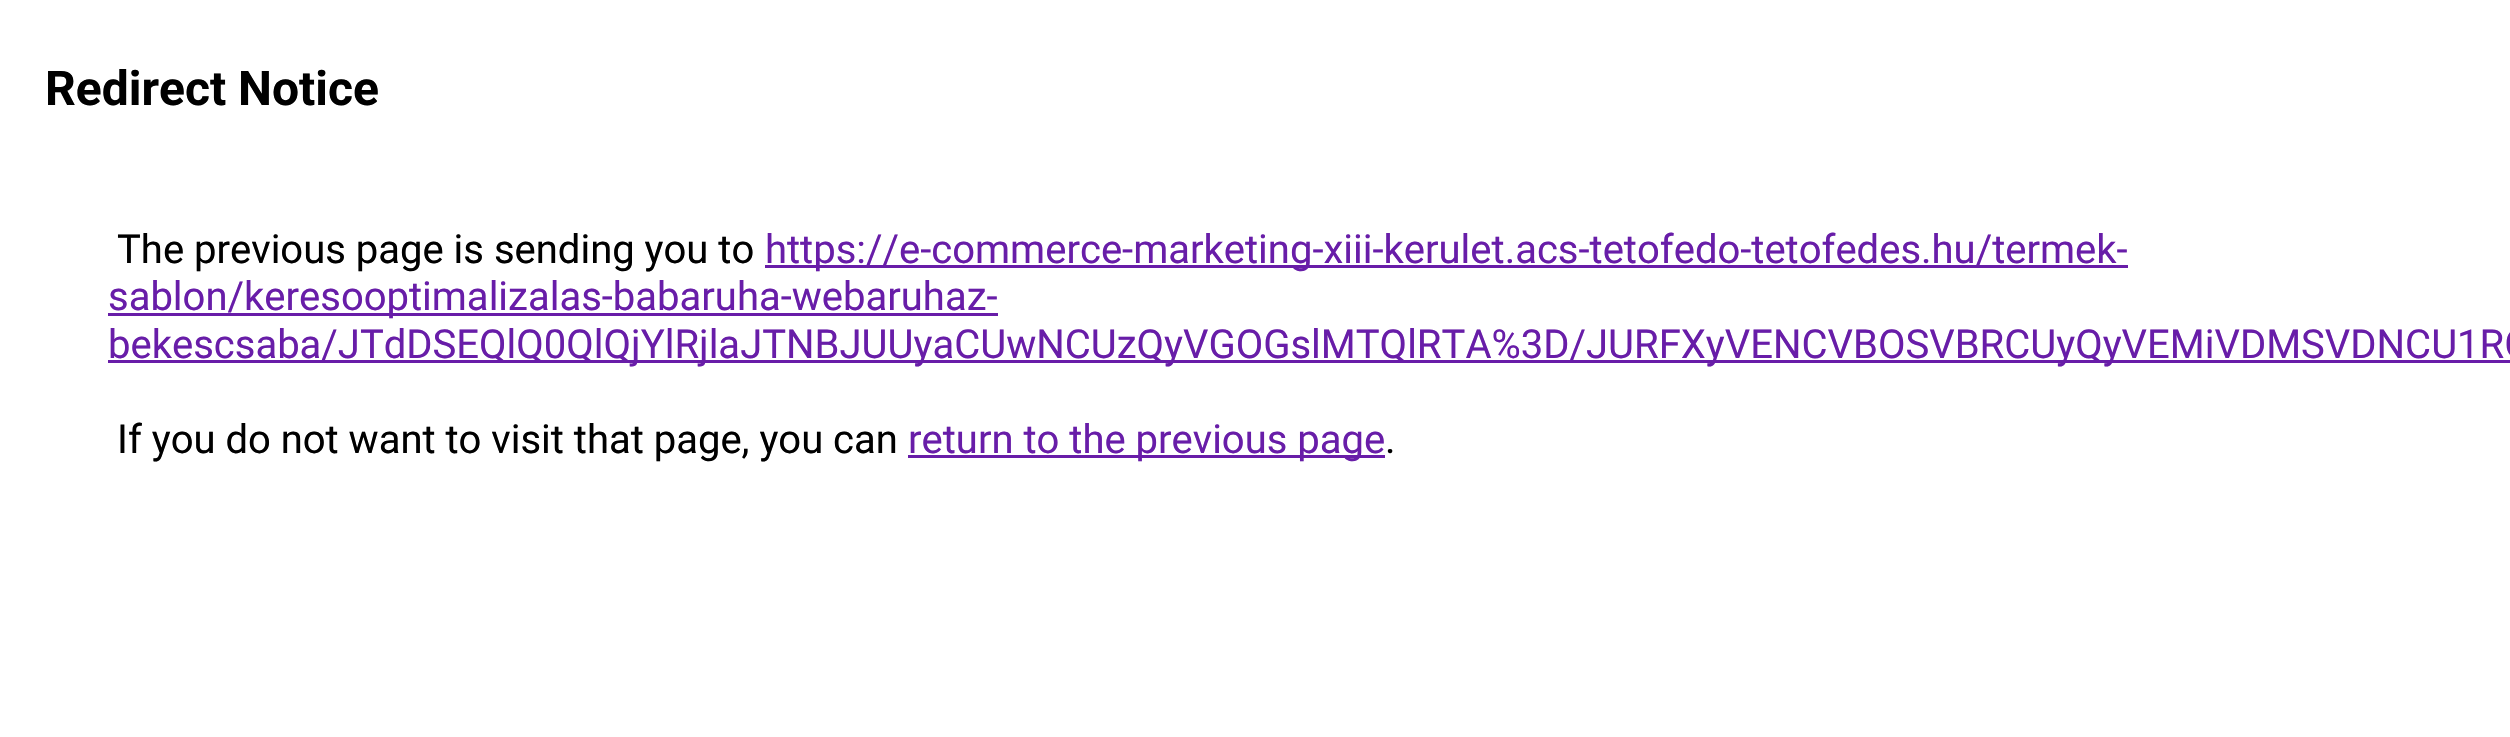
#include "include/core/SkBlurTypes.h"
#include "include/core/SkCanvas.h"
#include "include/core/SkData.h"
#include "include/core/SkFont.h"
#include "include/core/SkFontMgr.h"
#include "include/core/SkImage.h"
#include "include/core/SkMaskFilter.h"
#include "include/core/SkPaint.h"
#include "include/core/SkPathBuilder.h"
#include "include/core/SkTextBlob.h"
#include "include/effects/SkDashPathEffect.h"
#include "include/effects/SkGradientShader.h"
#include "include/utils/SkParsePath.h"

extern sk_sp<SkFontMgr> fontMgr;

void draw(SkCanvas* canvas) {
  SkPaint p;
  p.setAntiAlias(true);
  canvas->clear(SK_ColorWHITE);
  p.setColor(SkColorSetRGB(104, 29, 168));
  canvas->drawRect(SkRect::MakeLTRB(765, 265, 2128, 268), p);
  canvas->drawRect(SkRect::MakeLTRB(108, 313, 998, 316), p);
  canvas->drawRect(SkRect::MakeLTRB(108, 360, 2510, 363), p);
  canvas->drawRect(SkRect::MakeLTRB(908, 455, 1385, 458), p);
  SkFont font1(fontMgr->matchFamilyStyle("Roboto", SkFontStyle::Bold()), 48);
  font1.setSubpixel(true);
  p.setColor(SK_ColorBLACK);
  canvas->drawString("Redirect Notice", 45, 105, font1, p);
  SkFont font2(fontMgr->matchFamilyStyle("Roboto", SkFontStyle::Normal()), 40);
  font2.setSubpixel(true);
  canvas->drawString("The previous page is sending you to", 117, 263, font2, p);
  p.setColor(SkColorSetRGB(104, 29, 168));
  canvas->drawString("https://e-commerce-marketing-xiii-kerulet.acs-tetofedo-tetofedes.hu/termek-", 765, 263, font2, p);
  canvas->drawString("sablon/keresooptimalizalas-babaruha-webaruhaz-", 108, 310, font2, p);
  canvas->drawString("bekescsaba/JTdDSEQlQ0QlQjYlRjlaJTNBJUUyaCUwNCUzQyVGOGslMTQlRTA%3D/JURFXyVENCVBOSVBRCUyQyVEMiVDMSVDNCU1RG", 108, 358, font2, p);
  p.setColor(SK_ColorBLACK);
  canvas->drawString("If you do not want to visit that page, you can", 117, 453, font2, p);
  p.setColor(SkColorSetRGB(104, 29, 168));
  canvas->drawString("return to the previous page", 908, 453, font2, p);
  p.setColor(SK_ColorBLACK);
  canvas->drawString(".", 1385, 453, font2, p);
}
